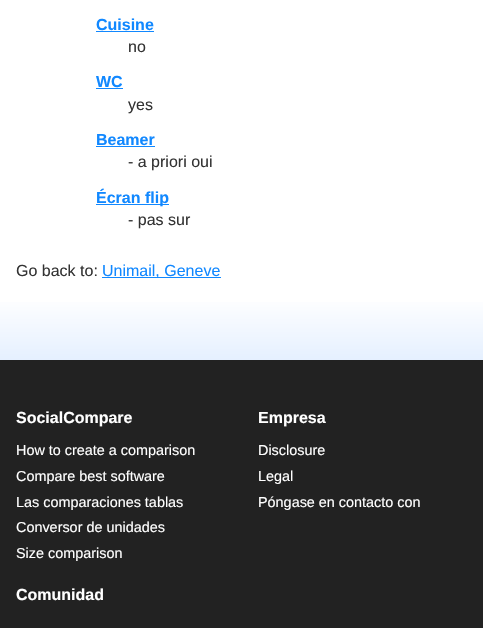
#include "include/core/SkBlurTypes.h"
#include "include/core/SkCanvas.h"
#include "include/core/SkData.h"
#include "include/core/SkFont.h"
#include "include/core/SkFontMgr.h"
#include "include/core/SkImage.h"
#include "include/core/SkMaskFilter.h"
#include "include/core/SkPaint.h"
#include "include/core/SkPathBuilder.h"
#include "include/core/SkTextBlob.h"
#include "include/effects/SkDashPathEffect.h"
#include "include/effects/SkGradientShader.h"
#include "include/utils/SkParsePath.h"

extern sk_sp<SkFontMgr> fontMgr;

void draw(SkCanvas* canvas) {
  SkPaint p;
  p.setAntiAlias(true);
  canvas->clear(SK_ColorWHITE);
  p.setColor(SkColorSetRGB(17, 136, 255));
  canvas->drawRect(SkRect::MakeLTRB(96, 31, 154, 32), p);
  canvas->drawRect(SkRect::MakeLTRB(96, 88, 123, 89), p);
  canvas->drawRect(SkRect::MakeLTRB(96, 146, 155, 147), p);
  canvas->drawRect(SkRect::MakeLTRB(96, 204, 169, 205), p);
  canvas->drawRect(SkRect::MakeLTRB(102, 277, 221, 278), p);
  p.setColor(SkColorSetRGB(34, 34, 34));
  canvas->drawRect(SkRect::MakeLTRB(0, 360, 483, 628), p);
  {
    const SkColor colors[] = {SkColorSetRGB(229, 240, 255), SK_ColorWHITE};
    const float stops[] = {0, 1};
    const SkPoint ends[] = {{242, 360}, {242, 296}};
    p.setShader(SkGradientShader::MakeLinear(ends, colors, stops, 2, SkTileMode::kClamp));
    p.setAlpha(255);
  }
  canvas->drawRect(SkRect::MakeLTRB(0, 302, 483, 360), p);
  SkFont font1(fontMgr->matchFamilyStyle("Liberation Sans", SkFontStyle::Bold()), 16);
  font1.setSubpixel(true);
  p.setShader(nullptr);
  p.setColor(SkColorSetRGB(17, 136, 255));
  canvas->drawString("Cuisine", 96, 30, font1, p);
  SkFont font2(fontMgr->matchFamilyStyle("Liberation Sans", SkFontStyle::Normal()), 16);
  font2.setSubpixel(true);
  p.setColor(SkColorSetRGB(51, 51, 51));
  canvas->drawString("no", 128, 52, font2, p);
  p.setColor(SkColorSetRGB(17, 136, 255));
  canvas->drawString("WC", 96, 87, font1, p);
  p.setColor(SkColorSetRGB(51, 51, 51));
  canvas->drawString("yes", 128, 110, font2, p);
  p.setColor(SkColorSetRGB(17, 136, 255));
  canvas->drawString("Beamer", 96, 145, font1, p);
  p.setColor(SkColorSetRGB(51, 51, 51));
  canvas->drawString("- a priori oui", 128, 167, font2, p);
  p.setColor(SkColorSetRGB(17, 136, 255));
  canvas->drawString("Écran flip", 96, 203, font1, p);
  p.setColor(SkColorSetRGB(51, 51, 51));
  canvas->drawString("- pas sur", 128, 225, font2, p);
  canvas->drawString("Go back to:", 16, 276, font2, p);
  p.setColor(SkColorSetRGB(17, 136, 255));
  canvas->drawString("Unimail, Geneve", 102, 276, font2, p);
  p.setColor(SK_ColorWHITE);
  canvas->drawString("SocialCompare", 16, 423, font1, p);
  SkFont font3(fontMgr->matchFamilyStyle("Liberation Sans", SkFontStyle::Normal()), 14.4f);
  font3.setSubpixel(true);
  canvas->drawString("How to create a comparison", 16, 455, font3, p);
  canvas->drawString("Compare best software", 16, 481, font3, p);
  canvas->drawString("Las comparaciones tablas", 16, 507, font3, p);
  canvas->drawString("Conversor de unidades", 16, 532, font3, p);
  canvas->drawString("Size comparison", 16, 558, font3, p);
  canvas->drawString("Empresa", 258, 423, font1, p);
  canvas->drawString("Disclosure", 258, 455, font3, p);
  canvas->drawString("Legal", 258, 481, font3, p);
  canvas->drawString("Póngase en contacto con", 258, 507, font3, p);
  canvas->drawString("Comunidad", 16, 600, font1, p);
}
